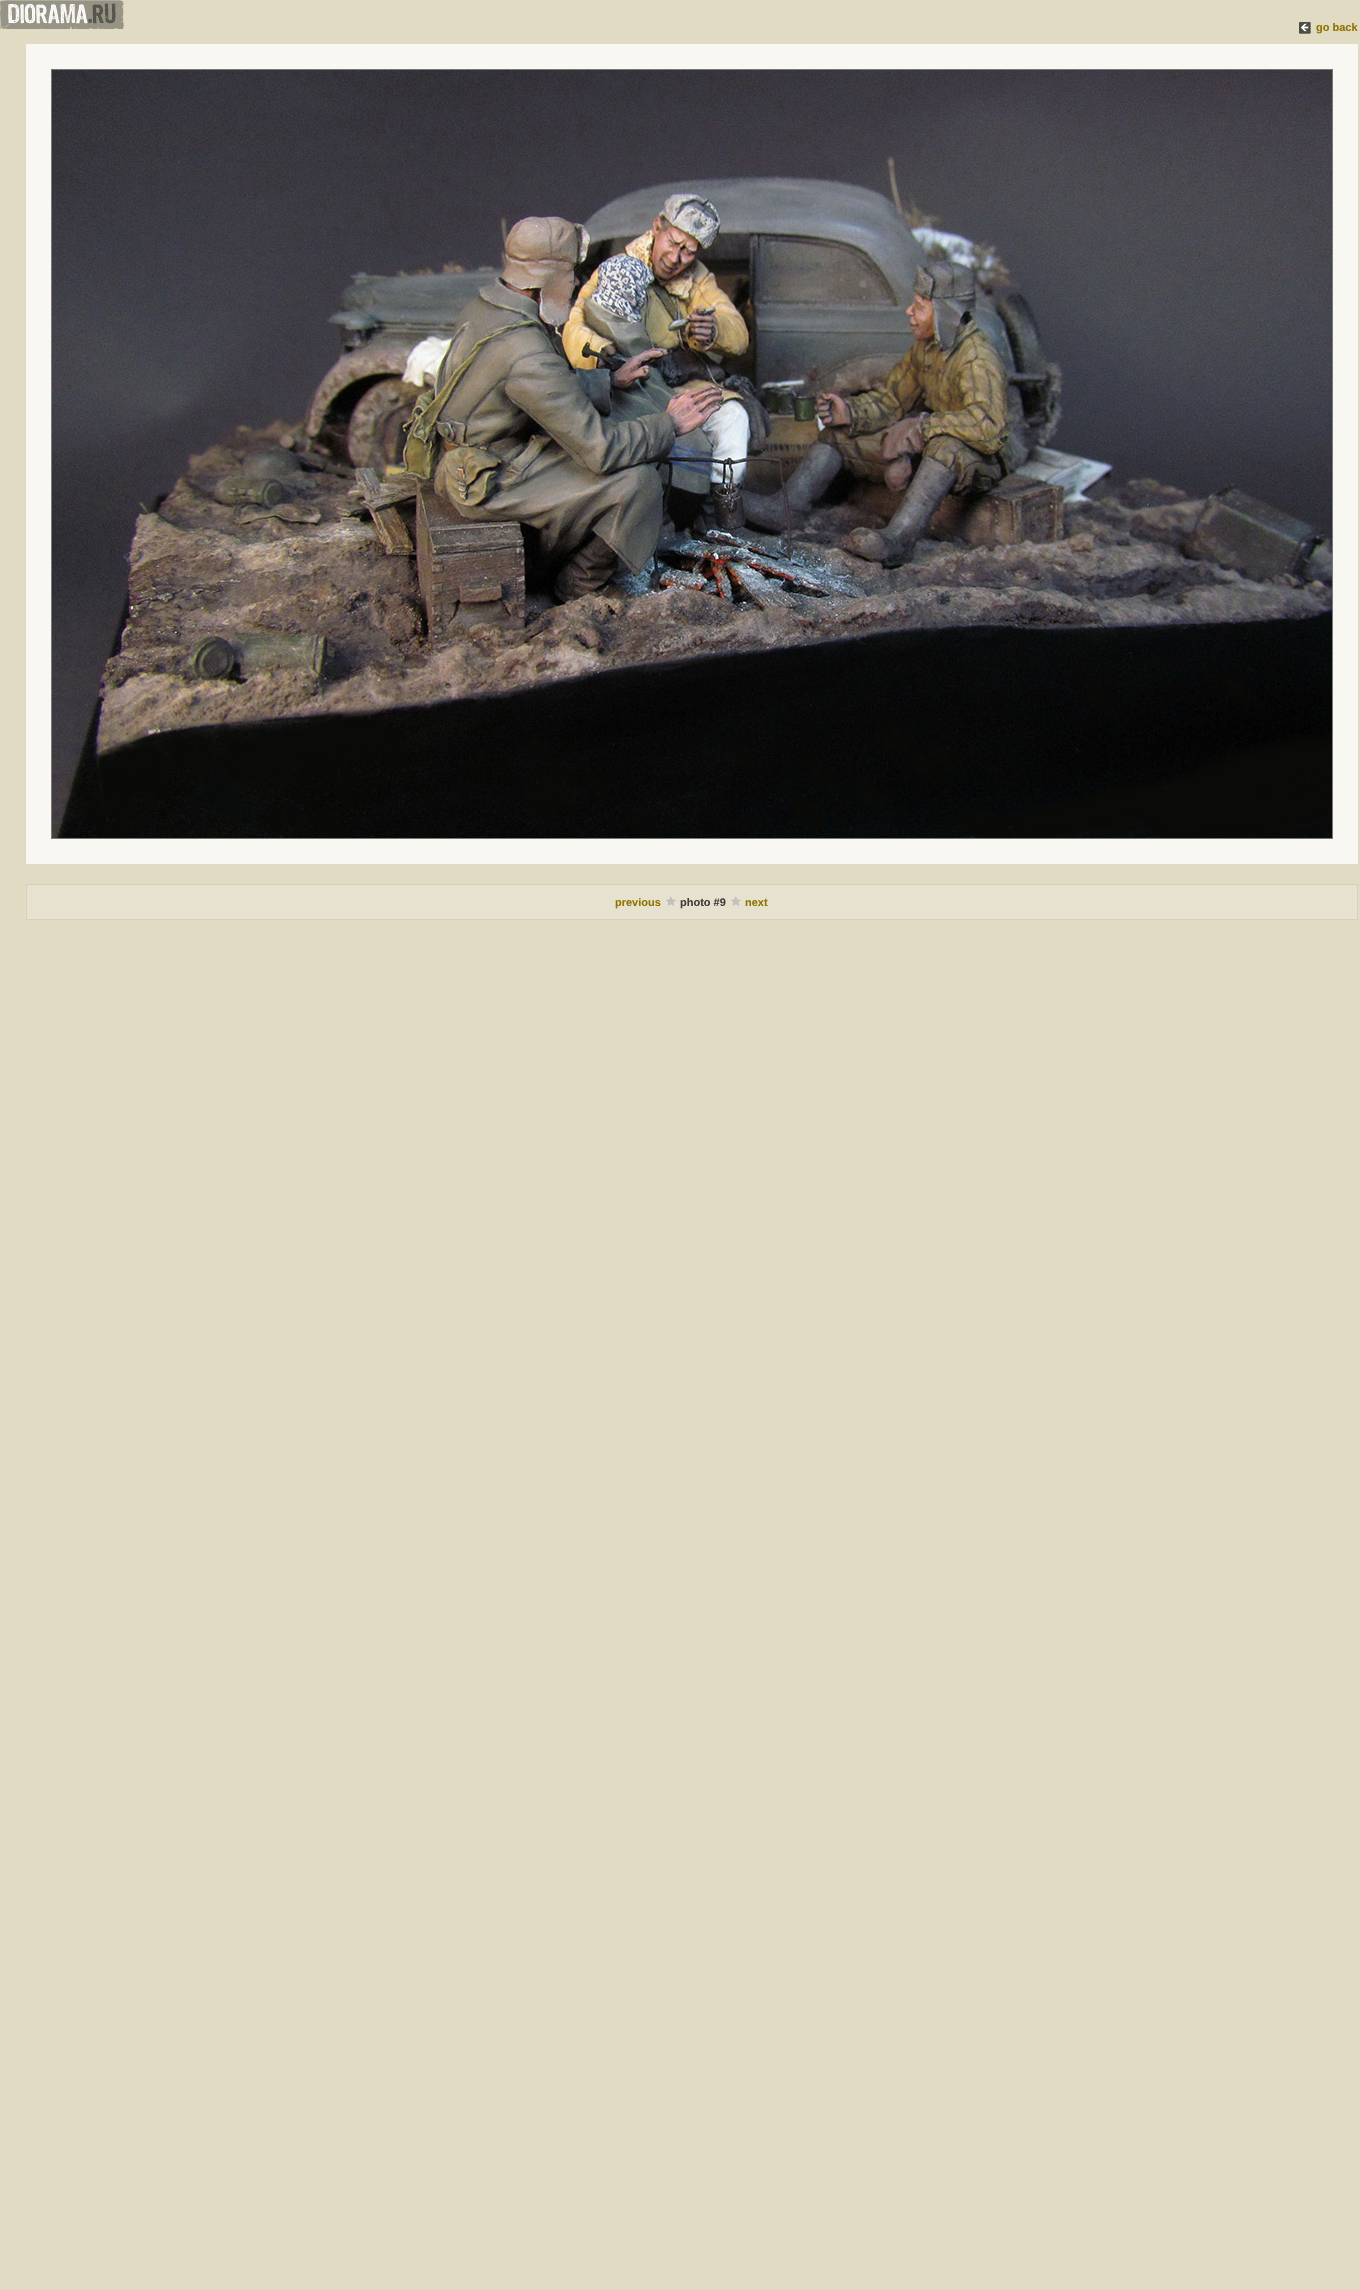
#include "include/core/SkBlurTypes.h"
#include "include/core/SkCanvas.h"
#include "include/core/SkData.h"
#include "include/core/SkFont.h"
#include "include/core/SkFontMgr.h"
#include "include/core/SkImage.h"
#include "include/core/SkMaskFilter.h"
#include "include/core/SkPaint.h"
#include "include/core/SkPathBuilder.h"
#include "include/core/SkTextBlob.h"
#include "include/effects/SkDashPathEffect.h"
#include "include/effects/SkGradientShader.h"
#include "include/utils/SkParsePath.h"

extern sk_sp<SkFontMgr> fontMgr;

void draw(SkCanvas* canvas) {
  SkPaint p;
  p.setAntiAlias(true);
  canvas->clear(SkColorSetRGB(225, 219, 196));
  canvas->drawImageRect(SkImages::DeferredFromEncodedData(SkData::MakeFromFileName("images/1.png")), SkRect::MakeLTRB(0, 0, 124, 29), SkSamplingOptions());
  canvas->drawImageRect(SkImages::DeferredFromEncodedData(SkData::MakeFromFileName("images/2.png")), SkRect::MakeLTRB(1299, 22, 1311, 34), SkSamplingOptions());
  p.setColor(SkColorSetRGB(248, 247, 242));
  canvas->drawRect(SkRect::MakeLTRB(26, 44, 1358, 864), p);
  p.setStyle(SkPaint::kStroke_Style);
  p.setStrokeWidth(1);
  p.setColor(SkColorSetRGB(119, 119, 119));
  canvas->drawRect(SkRect::MakeLTRB(51.5f, 69.5f, 1332.5f, 838.5f), p);
  canvas->drawImageRect(SkImages::DeferredFromEncodedData(SkData::MakeFromFileName("images/3.png")), SkRect::MakeLTRB(52, 70, 1332, 838), SkSamplingOptions());
  p.setStyle(SkPaint::kFill_Style);
  p.setColor(SkColorSetRGB(231, 226, 208));
  canvas->drawRect(SkRect::MakeLTRB(26.5f, 884.5f, 1357.5f, 919.5f), p);
  p.setStyle(SkPaint::kStroke_Style);
  p.setColor(SkColorSetRGB(214, 209, 188));
  canvas->drawRect(SkRect::MakeLTRB(26.5f, 884.5f, 1357.5f, 919.5f), p);
  canvas->drawImageRect(SkImages::DeferredFromEncodedData(SkData::MakeFromFileName("images/4.png")), SkRect::MakeLTRB(665, 896, 676, 906), SkSamplingOptions());
  canvas->drawImageRect(SkImages::DeferredFromEncodedData(SkData::MakeFromFileName("images/4.png")), SkRect::MakeLTRB(730, 896, 741, 906), SkSamplingOptions());
  SkFont font1(fontMgr->matchFamilyStyle("Liberation Sans", SkFontStyle::Bold()), 11);
  font1.setSubpixel(true);
  p.setStyle(SkPaint::kFill_Style);
  p.setColor(SkColorSetRGB(144, 115, 0));
  canvas->drawString("go back", 1316, 31, font1, p);
  canvas->drawString("previous", 615, 906, font1, p);
  p.setColor(SkColorSetRGB(66, 60, 59));
  canvas->drawString("photo #9", 680, 906, font1, p);
  p.setColor(SkColorSetRGB(144, 115, 0));
  canvas->drawString("next", 745, 906, font1, p);
}
